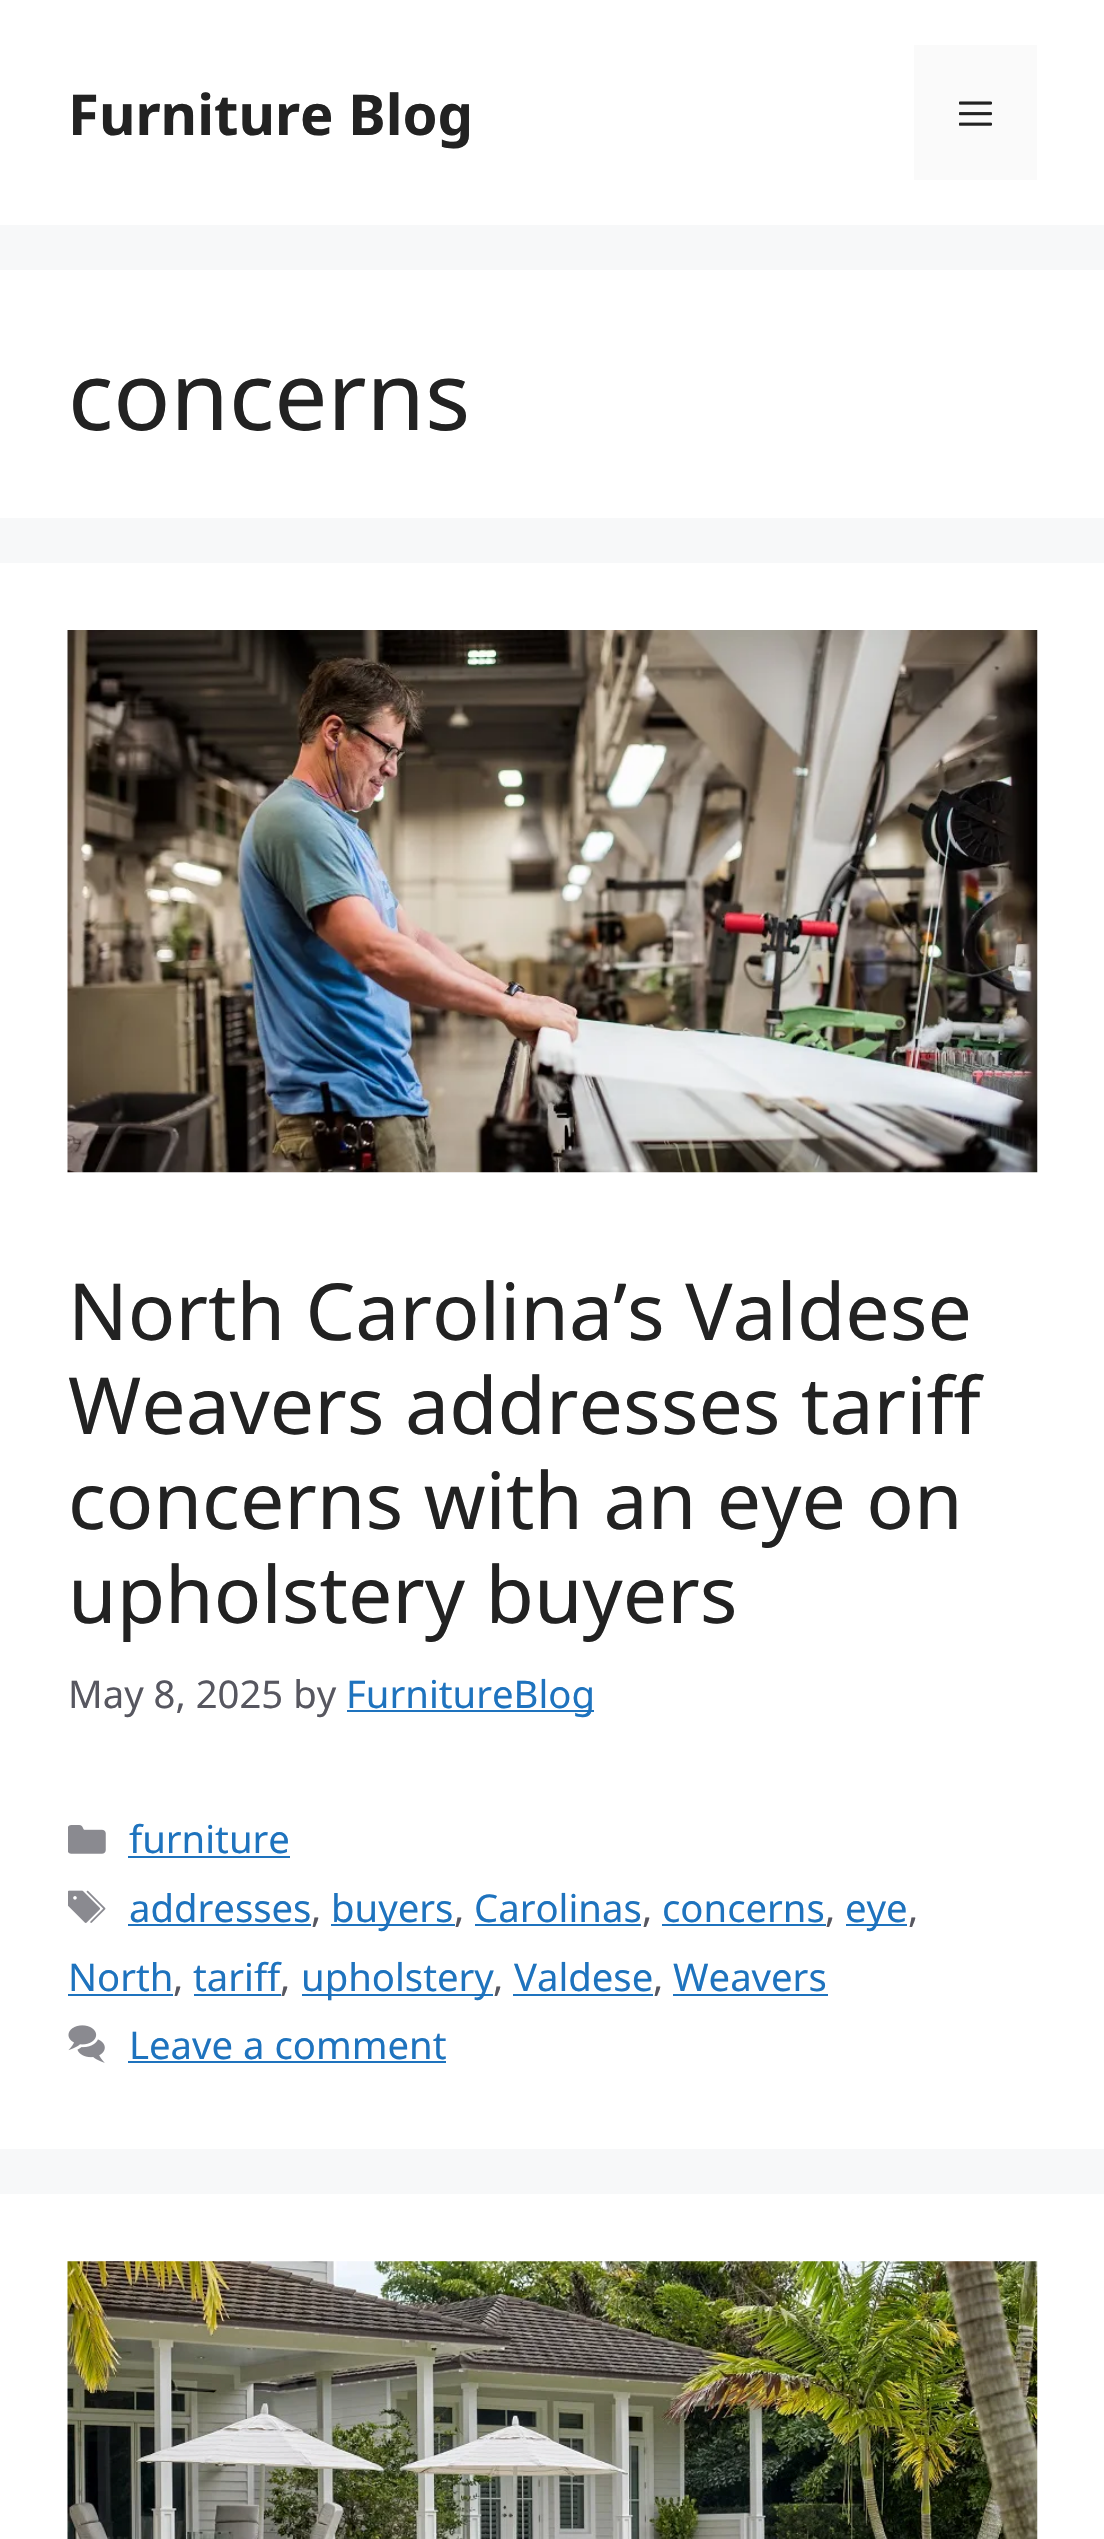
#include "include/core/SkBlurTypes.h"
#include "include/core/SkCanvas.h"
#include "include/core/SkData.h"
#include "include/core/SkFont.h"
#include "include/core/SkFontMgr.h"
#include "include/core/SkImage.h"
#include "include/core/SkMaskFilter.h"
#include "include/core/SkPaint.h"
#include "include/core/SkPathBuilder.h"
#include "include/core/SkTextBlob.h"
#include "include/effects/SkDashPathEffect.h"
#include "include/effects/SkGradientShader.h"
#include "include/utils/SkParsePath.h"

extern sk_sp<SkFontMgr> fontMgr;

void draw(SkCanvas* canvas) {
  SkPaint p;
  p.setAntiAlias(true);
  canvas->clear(SkColorSetRGB(247, 248, 249));
  p.setColor(SK_ColorWHITE);
  canvas->drawRect(SkRect::MakeLTRB(0, 0, 1104, 225), p);
  p.setColor(SkColorSetRGB(250, 250, 250));
  canvas->drawRect(SkRect::MakeLTRB(914, 45, 1037, 180), p);
  canvas->drawImageRect(SkImages::DeferredFromEncodedData(SkData::MakeFromFileName("images/1.png")), SkRect::MakeLTRB(959, 101, 992, 126), SkSamplingOptions());
  p.setColor(SK_ColorWHITE);
  canvas->drawRect(SkRect::MakeLTRB(0, 270, 1104, 518), p);
  canvas->drawRect(SkRect::MakeLTRB(0, 563, 1104, 2149), p);
  canvas->drawImageRect(SkImages::DeferredFromEncodedData(SkData::MakeFromFileName("images/2.png")), SkRect::MakeLTRB(67, 630, 1038, 1173), SkSamplingOptions());
  p.setColor(SkColorSetRGB(30, 115, 190));
  canvas->drawRect(SkRect::MakeLTRB(347, 1710, 594, 1712), p);
  canvas->drawImageRect(SkImages::DeferredFromEncodedData(SkData::MakeFromFileName("images/3.png")), SkRect::MakeLTRB(68, 1825, 106, 1854), SkSamplingOptions());
  canvas->drawRect(SkRect::MakeLTRB(128, 1856, 290, 1858), p);
  canvas->drawImageRect(SkImages::DeferredFromEncodedData(SkData::MakeFromFileName("images/4.png")), SkRect::MakeLTRB(68, 1890, 106, 1923), SkSamplingOptions());
  canvas->drawRect(SkRect::MakeLTRB(128, 1924, 311, 1926), p);
  canvas->drawRect(SkRect::MakeLTRB(331, 1924, 455, 1926), p);
  canvas->drawRect(SkRect::MakeLTRB(475, 1924, 641, 1926), p);
  canvas->drawRect(SkRect::MakeLTRB(662, 1924, 826, 1926), p);
  canvas->drawRect(SkRect::MakeLTRB(846, 1924, 907, 1926), p);
  canvas->drawRect(SkRect::MakeLTRB(68, 1994, 173, 1996), p);
  canvas->drawRect(SkRect::MakeLTRB(194, 1994, 281, 1996), p);
  canvas->drawRect(SkRect::MakeLTRB(302, 1994, 493, 1996), p);
  canvas->drawRect(SkRect::MakeLTRB(513, 1994, 653, 1996), p);
  canvas->drawRect(SkRect::MakeLTRB(673, 1994, 828, 1996), p);
  canvas->drawImageRect(SkImages::DeferredFromEncodedData(SkData::MakeFromFileName("images/5.png")), SkRect::MakeLTRB(68, 2025, 105, 2063), SkSamplingOptions());
  canvas->drawRect(SkRect::MakeLTRB(128, 2061, 446, 2063), p);
  p.setColor(SK_ColorWHITE);
  canvas->drawRect(SkRect::MakeLTRB(0, 2194, 1104, 2539), p);
  canvas->drawImageRect(SkImages::DeferredFromEncodedData(SkData::MakeFromFileName("images/6.png")), SkRect::MakeLTRB(67, 2261, 1038, 2539), SkSamplingOptions());
  SkFont font1(fontMgr->matchFamilyStyle("Noto Sans", SkFontStyle::Bold()), 56.25f);
  font1.setSubpixel(true);
  p.setColor(SkColorSetRGB(34, 34, 34));
  canvas->drawString("Furniture Blog", 68, 135, font1, p);
  SkFont font2(fontMgr->matchFamilyStyle("Noto Sans", SkFontStyle::Normal()), 94.5f);
  font2.setSubpixel(true);
  canvas->drawString("concerns", 68, 430, font2, p);
  SkFont font3(fontMgr->matchFamilyStyle("Noto Sans", SkFontStyle::Normal()), 78.75f);
  font3.setSubpixel(true);
  canvas->drawString("North Carolina’s Valdese", 68, 1340, font3, p);
  canvas->drawString("Weavers addresses tariff", 68, 1434, font3, p);
  canvas->drawString("concerns with an eye on", 68, 1529, font3, p);
  canvas->drawString("upholstery buyers", 68, 1623, font3, p);
  SkFont font4(fontMgr->matchFamilyStyle("Noto Sans", SkFontStyle::Normal()), 38.25f);
  font4.setSubpixel(true);
  p.setColor(SkColorSetRGB(87, 87, 96));
  canvas->drawString("May 8, 2025 by", 68, 1708, font4, p);
  p.setColor(SkColorSetRGB(30, 115, 190));
  canvas->drawString("FurnitureBlog", 346, 1708, font4, p);
  canvas->drawString("furniture", 129, 1853, font4, p);
  canvas->drawString("addresses", 129, 1922, font4, p);
  p.setColor(SkColorSetRGB(87, 87, 96));
  canvas->drawString(",", 311, 1922, font4, p);
  p.setColor(SkColorSetRGB(30, 115, 190));
  canvas->drawString("buyers", 331, 1922, font4, p);
  p.setColor(SkColorSetRGB(87, 87, 96));
  canvas->drawString(",", 454, 1922, font4, p);
  p.setColor(SkColorSetRGB(30, 115, 190));
  canvas->drawString("Carolinas", 474, 1922, font4, p);
  p.setColor(SkColorSetRGB(87, 87, 96));
  canvas->drawString(",", 642, 1922, font4, p);
  p.setColor(SkColorSetRGB(30, 115, 190));
  canvas->drawString("concerns", 662, 1922, font4, p);
  p.setColor(SkColorSetRGB(87, 87, 96));
  canvas->drawString(",", 825, 1922, font4, p);
  p.setColor(SkColorSetRGB(30, 115, 190));
  canvas->drawString("eye", 845, 1922, font4, p);
  p.setColor(SkColorSetRGB(87, 87, 96));
  canvas->drawString(",", 908, 1922, font4, p);
  p.setColor(SkColorSetRGB(30, 115, 190));
  canvas->drawString("North", 68, 1991, font4, p);
  p.setColor(SkColorSetRGB(87, 87, 96));
  canvas->drawString(",", 173, 1991, font4, p);
  p.setColor(SkColorSetRGB(30, 115, 190));
  canvas->drawString("tariff", 193, 1991, font4, p);
  p.setColor(SkColorSetRGB(87, 87, 96));
  canvas->drawString(",", 280, 1991, font4, p);
  p.setColor(SkColorSetRGB(30, 115, 190));
  canvas->drawString("upholstery", 301, 1991, font4, p);
  p.setColor(SkColorSetRGB(87, 87, 96));
  canvas->drawString(",", 493, 1991, font4, p);
  p.setColor(SkColorSetRGB(30, 115, 190));
  canvas->drawString("Valdese", 514, 1991, font4, p);
  p.setColor(SkColorSetRGB(87, 87, 96));
  canvas->drawString(",", 653, 1991, font4, p);
  p.setColor(SkColorSetRGB(30, 115, 190));
  canvas->drawString("Weavers", 673, 1991, font4, p);
  canvas->drawString("Leave a comment", 129, 2059, font4, p);
}
